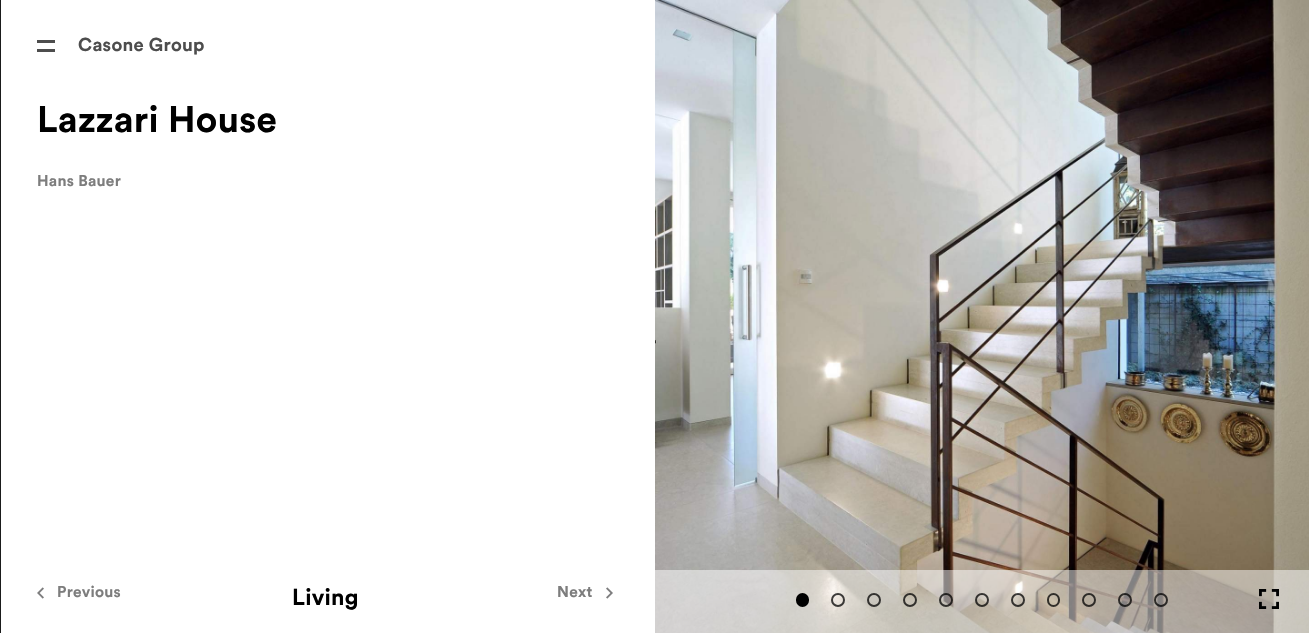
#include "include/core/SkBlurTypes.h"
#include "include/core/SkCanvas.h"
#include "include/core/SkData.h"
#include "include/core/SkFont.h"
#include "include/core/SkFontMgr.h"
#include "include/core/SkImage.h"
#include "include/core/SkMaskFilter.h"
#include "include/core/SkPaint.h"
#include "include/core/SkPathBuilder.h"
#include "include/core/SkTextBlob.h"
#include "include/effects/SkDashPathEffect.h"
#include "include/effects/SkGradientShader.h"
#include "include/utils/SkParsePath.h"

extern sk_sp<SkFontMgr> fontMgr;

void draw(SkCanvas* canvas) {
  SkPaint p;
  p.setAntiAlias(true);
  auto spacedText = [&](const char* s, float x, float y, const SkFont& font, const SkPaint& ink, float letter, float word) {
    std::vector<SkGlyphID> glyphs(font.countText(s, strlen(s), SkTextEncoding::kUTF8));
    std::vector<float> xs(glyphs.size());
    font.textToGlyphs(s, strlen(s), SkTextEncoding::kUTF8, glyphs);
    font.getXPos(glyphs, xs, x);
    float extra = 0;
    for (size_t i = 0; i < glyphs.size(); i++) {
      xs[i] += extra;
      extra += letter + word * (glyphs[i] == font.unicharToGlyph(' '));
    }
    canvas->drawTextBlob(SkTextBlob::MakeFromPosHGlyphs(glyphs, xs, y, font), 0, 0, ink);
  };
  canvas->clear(SK_ColorWHITE);
  p.setColor(SkColorSetRGB(26, 27, 27));
  canvas->drawRect(SkRect::MakeLTRB(0, 0, 1, 633), p);
  p.setColor(SkColorSetRGB(77, 77, 77));
  canvas->drawRect(SkRect::MakeLTRB(37, 40, 55, 43), p);
  canvas->drawRect(SkRect::MakeLTRB(37, 49, 55, 52), p);
  canvas->drawImageRect(SkImages::DeferredFromEncodedData(SkData::MakeFromFileName("images/1.png")), SkRect::MakeLTRB(37, 587, 44, 599), SkSamplingOptions());
  canvas->drawImageRect(SkImages::DeferredFromEncodedData(SkData::MakeFromFileName("images/2.png")), SkRect::MakeLTRB(606, 587, 613, 599), SkSamplingOptions());
  canvas->drawImageRect(SkImages::DeferredFromEncodedData(SkData::MakeFromFileName("images/3.png")), SkRect::MakeLTRB(655, 0, 1309, 633), SkSamplingOptions());
  p.setColor(SkColorSetARGB(128, 255, 255, 255));
  canvas->drawRect(SkRect::MakeLTRB(655, 570, 1309, 633), p);
  p.setColor(SK_ColorBLACK);
  canvas->drawRoundRect(SkRect::MakeLTRB(797, 594, 808, 606), 5.5f, 5.5f, p);
  p.setStyle(SkPaint::kStroke_Style);
  p.setStrokeWidth(2);
  canvas->drawRoundRect(SkRect::MakeLTRB(797, 594, 808, 606), 5.5f, 5.5f, p);
  p.setColor(SkColorSetARGB(191, 0, 0, 0));
  canvas->drawCircle(838, 600, 6, p);
  canvas->drawCircle(874, 600, 6, p);
  canvas->drawCircle(910, 600, 6, p);
  canvas->drawCircle(946, 600, 6, p);
  canvas->drawCircle(982, 600, 6, p);
  canvas->drawCircle(1018, 600, 6, p);
  canvas->drawRoundRect(SkRect::MakeLTRB(1048, 594, 1059, 606), 5.5f, 5.5f, p);
  canvas->drawCircle(1089, 600, 6, p);
  canvas->drawCircle(1125, 600, 6, p);
  canvas->drawCircle(1161, 600, 6, p);
  canvas->drawImageRect(SkImages::DeferredFromEncodedData(SkData::MakeFromFileName("images/4.png")), SkRect::MakeLTRB(1259, 589, 1279, 609), SkSamplingOptions());
  SkFont font1(fontMgr->matchFamilyStyle("Circular", SkFontStyle::Bold()), 18.5f);
  font1.setSubpixel(true);
  p.setStyle(SkPaint::kFill_Style);
  p.setColor(SkColorSetRGB(77, 77, 77));
  spacedText("Casone Group", 78, 51, font1, p, 0.25f, 0);
  SkFont font2(fontMgr->matchFamilyStyle("Circular", SkFontStyle::Bold()), 36.75f);
  font2.setSubpixel(true);
  p.setColor(SK_ColorBLACK);
  spacedText("Lazzari House", 37, 132, font2, p, 0.25f, 0);
  SkFont font3(fontMgr->matchFamilyStyle("Circular", SkFontStyle::Bold()), 15.5f);
  font3.setSubpixel(true);
  p.setColor(SkColorSetRGB(125, 125, 125));
  spacedText("Hans Bauer", 37, 186, font3, p, 0.25f, 0);
  spacedText("Previous", 57, 597, font3, p, 0.25f, 0);
  SkFont font4(fontMgr->matchFamilyStyle("Circular", SkFontStyle::Bold()), 23);
  font4.setSubpixel(true);
  p.setColor(SK_ColorBLACK);
  spacedText("Living", 292, 605, font4, p, 0.25f, 0);
  p.setColor(SkColorSetRGB(125, 125, 125));
  spacedText("Next", 557, 597, font3, p, 0.25f, 0);
}
